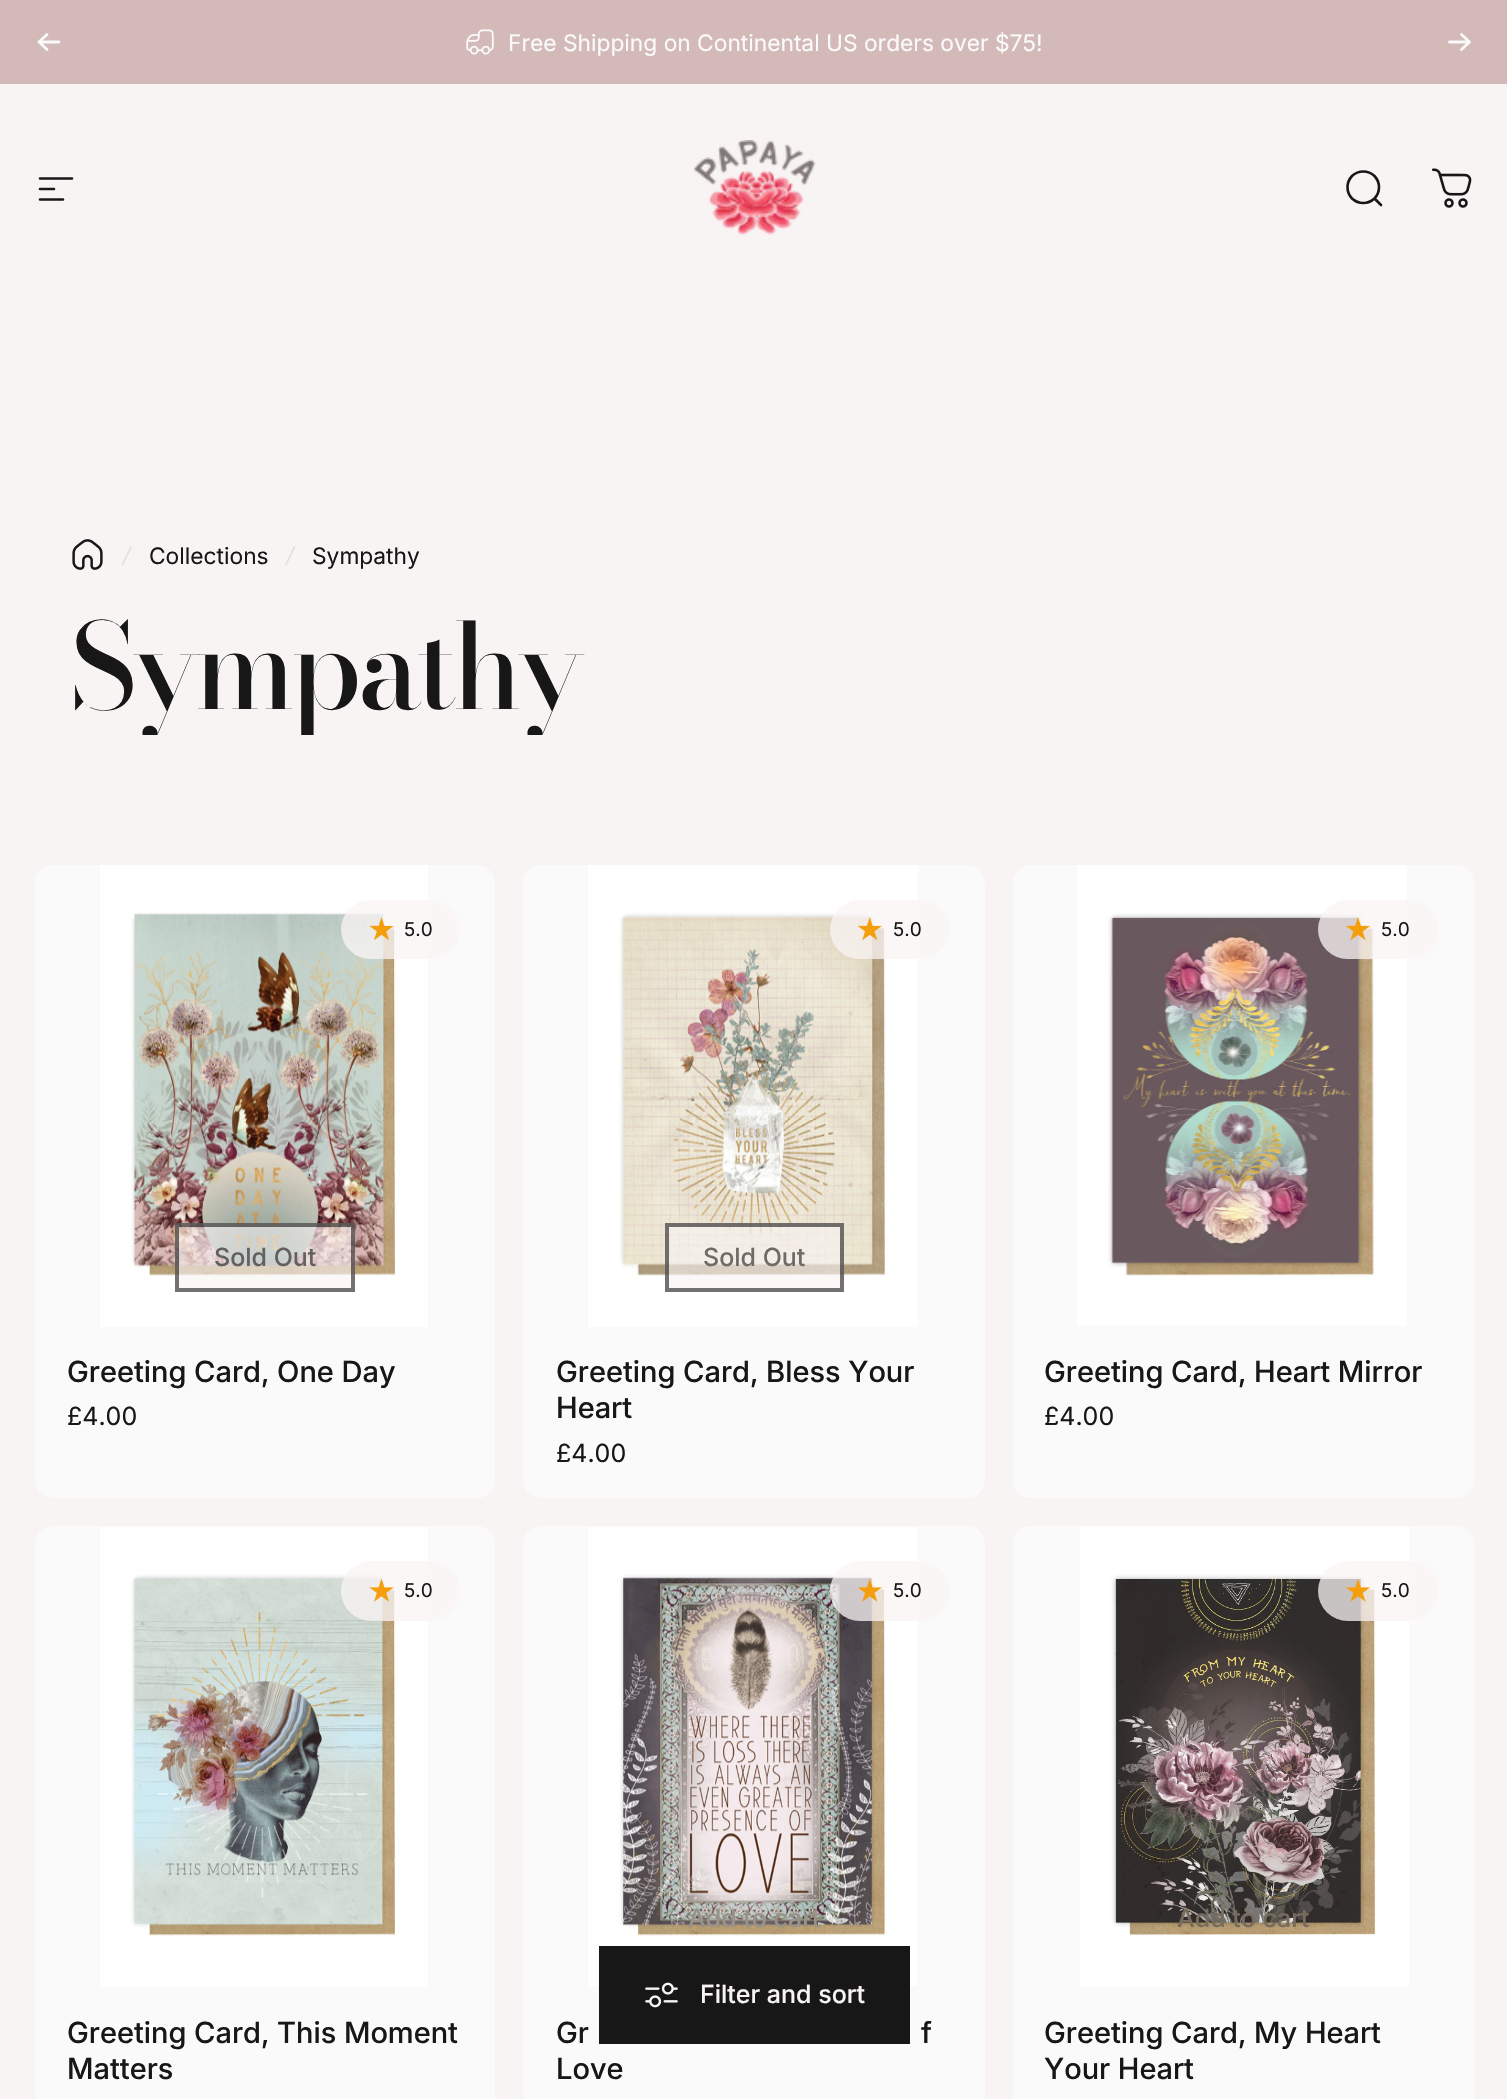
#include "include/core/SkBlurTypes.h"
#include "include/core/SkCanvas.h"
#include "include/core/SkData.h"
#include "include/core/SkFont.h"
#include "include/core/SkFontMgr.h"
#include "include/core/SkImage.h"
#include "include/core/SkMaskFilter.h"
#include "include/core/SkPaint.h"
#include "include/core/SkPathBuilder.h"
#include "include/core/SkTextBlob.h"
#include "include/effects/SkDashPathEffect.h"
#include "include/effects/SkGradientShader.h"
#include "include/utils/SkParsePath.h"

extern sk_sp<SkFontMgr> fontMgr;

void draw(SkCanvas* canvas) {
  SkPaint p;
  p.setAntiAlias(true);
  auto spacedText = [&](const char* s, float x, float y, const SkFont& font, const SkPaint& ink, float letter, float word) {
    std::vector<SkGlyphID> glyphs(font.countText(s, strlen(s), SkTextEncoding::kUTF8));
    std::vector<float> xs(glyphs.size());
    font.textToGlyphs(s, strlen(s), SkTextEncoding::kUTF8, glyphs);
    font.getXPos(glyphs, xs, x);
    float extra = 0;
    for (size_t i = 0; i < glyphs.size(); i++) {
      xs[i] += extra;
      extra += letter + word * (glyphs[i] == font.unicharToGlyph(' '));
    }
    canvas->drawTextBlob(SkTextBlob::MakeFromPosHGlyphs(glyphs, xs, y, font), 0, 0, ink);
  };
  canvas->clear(SkColorSetRGB(249, 244, 244));
  p.setColor(SkColorSetRGB(212, 185, 185));
  canvas->drawRect(SkRect::MakeLTRB(0, 0, 1507, 84), p);
  p.setStyle(SkPaint::kStroke_Style);
  p.setStrokeWidth(2.8f);
  p.setStrokeCap(SkPaint::kRound_Cap);
  p.setStrokeJoin(SkPaint::kRound_Join);
  p.setColor(SkColorSetRGB(250, 250, 250));
  canvas->drawPath(SkPathBuilder().moveTo(47, 34.5f).lineTo(39, 42).moveTo(39, 42).lineTo(47, 49.5f).moveTo(39, 42).lineTo(59, 42).detach(), p);
  canvas->drawImageRect(SkImages::DeferredFromEncodedData(SkData::MakeFromFileName("images/1.png")), SkRect::MakeLTRB(466, 29, 494, 55), SkSamplingOptions());
  canvas->drawPath(SkPathBuilder().moveTo(1449.5f, 42).lineTo(1469.5f, 42).moveTo(1469.5f, 42).lineTo(1461.5f, 34.5f).moveTo(1469.5f, 42).lineTo(1461.5f, 49.5f).detach(), p);
  p.setStrokeWidth(2.6f);
  p.setStrokeJoin(SkPaint::kMiter_Join);
  p.setColor(SkColorSetRGB(23, 23, 23));
  canvas->drawPath(SkPathBuilder().moveTo(40, 178.5f).lineTo(72, 178.5f).moveTo(40, 189).lineTo(54, 189).moveTo(40, 199.5f).lineTo(63, 199.5f).detach(), p);
  canvas->drawImageRect(SkImages::DeferredFromEncodedData(SkData::MakeFromFileName("images/2.png")), SkRect::MakeLTRB(693, 140, 816, 235), SkSamplingOptions());
  canvas->drawPath(SkPathBuilder().moveTo(1381, 205).lineTo(1374.5f, 198.5f).moveTo(1374.5f, 198.5f).cubicTo(1380.5f, 192, 1380.5f, 182.5f, 1374.5f, 176).cubicTo(1368, 170, 1358.5f, 170, 1352, 176).cubicTo(1346, 182.5f, 1346, 192, 1352, 198.5f).cubicTo(1358.5f, 204.5f, 1368, 204.5f, 1374.5f, 198.5f).close().detach(), p);
  canvas->drawImageRect(SkImages::DeferredFromEncodedData(SkData::MakeFromFileName("images/3.png")), SkRect::MakeLTRB(1432, 168, 1472, 208), SkSamplingOptions());
  canvas->drawImageRect(SkImages::DeferredFromEncodedData(SkData::MakeFromFileName("images/4.png")), SkRect::MakeLTRB(72, 539, 103, 570), SkSamplingOptions());
  p.setStyle(SkPaint::kFill_Style);
  p.setColor(SkColorSetRGB(226, 222, 222));
  canvas->drawPath(SkPathBuilder().moveTo(130.5f, 546).lineTo(132, 546.5f).lineTo(123, 565.5f).lineTo(121.5f, 565).close().detach(), p);
  canvas->drawPath(SkPathBuilder().moveTo(294, 546).lineTo(295.5f, 546.5f).lineTo(286.5f, 565.5f).lineTo(285, 565).close().detach(), p);
  p.setColor(SkColorSetRGB(250, 250, 250));
  canvas->drawRoundRect(SkRect::MakeLTRB(35, 865, 495, 1498), 18, 18, p);
  canvas->drawImageRect(SkImages::DeferredFromEncodedData(SkData::MakeFromFileName("images/5.png")), SkRect::MakeLTRB(100, 865, 428, 1327), SkSamplingOptions());
  p.setColor(SkColorSetARGB(191, 249, 244, 244));
  canvas->drawRoundRect(SkRect::MakeLTRB(341, 900, 460, 959), 29.5f, 29.5f, p);
  canvas->drawImageRect(SkImages::DeferredFromEncodedData(SkData::MakeFromFileName("images/6.png")), SkRect::MakeLTRB(369, 917, 394, 941), SkSamplingOptions());
  p.setColor(SkColorSetARGB(153, 249, 244, 244));
  canvas->drawRect(SkRect::MakeLTRB(175, 1223, 355, 1292), p);
  p.setStyle(SkPaint::kStroke_Style);
  p.setStrokeWidth(4);
  p.setStrokeCap(SkPaint::kButt_Cap);
  p.setColor(SkColorSetARGB(153, 23, 23, 23));
  canvas->drawRect(SkRect::MakeLTRB(177, 1225, 353, 1290), p);
  p.setStyle(SkPaint::kFill_Style);
  p.setColor(SkColorSetRGB(250, 250, 250));
  canvas->drawRoundRect(SkRect::MakeLTRB(523, 865, 985, 1498), 18, 18, p);
  canvas->drawImageRect(SkImages::DeferredFromEncodedData(SkData::MakeFromFileName("images/7.png")), SkRect::MakeLTRB(588, 865, 918, 1327), SkSamplingOptions());
  p.setColor(SkColorSetARGB(191, 249, 244, 244));
  canvas->drawRoundRect(SkRect::MakeLTRB(830, 900, 950, 959), 29.5f, 29.5f, p);
  canvas->drawImageRect(SkImages::DeferredFromEncodedData(SkData::MakeFromFileName("images/8.png")), SkRect::MakeLTRB(858, 917, 882, 941), SkSamplingOptions());
  p.setColor(SkColorSetARGB(153, 249, 244, 244));
  canvas->drawRect(SkRect::MakeLTRB(665, 1223, 844, 1292), p);
  p.setStyle(SkPaint::kStroke_Style);
  p.setColor(SkColorSetARGB(153, 23, 23, 23));
  canvas->drawRect(SkRect::MakeLTRB(667, 1225, 842, 1290), p);
  p.setStyle(SkPaint::kFill_Style);
  p.setColor(SkColorSetRGB(250, 250, 250));
  canvas->drawRoundRect(SkRect::MakeLTRB(1013, 865, 1474, 1498), 18, 18, p);
  canvas->drawImageRect(SkImages::DeferredFromEncodedData(SkData::MakeFromFileName("images/9.png")), SkRect::MakeLTRB(1077, 865, 1407, 1326), SkSamplingOptions());
  p.setColor(SkColorSetARGB(191, 249, 244, 244));
  canvas->drawRoundRect(SkRect::MakeLTRB(1318, 900, 1439, 959), 29.5f, 29.5f, p);
  canvas->drawImageRect(SkImages::DeferredFromEncodedData(SkData::MakeFromFileName("images/10.png")), SkRect::MakeLTRB(1346, 917, 1370, 941), SkSamplingOptions());
  p.setColor(SkColorSetRGB(250, 250, 250));
  canvas->drawRoundRect(SkRect::MakeLTRB(35, 1526, 495, 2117), 18, 18, p);
  canvas->drawImageRect(SkImages::DeferredFromEncodedData(SkData::MakeFromFileName("images/11.png")), SkRect::MakeLTRB(100, 1527, 428, 1986), SkSamplingOptions());
  p.setColor(SkColorSetARGB(191, 249, 244, 244));
  canvas->drawRoundRect(SkRect::MakeLTRB(341, 1561, 460, 1621), 30, 30, p);
  canvas->drawImageRect(SkImages::DeferredFromEncodedData(SkData::MakeFromFileName("images/12.png")), SkRect::MakeLTRB(369, 1579, 394, 1602), SkSamplingOptions());
  p.setColor(SkColorSetRGB(250, 250, 250));
  canvas->drawRoundRect(SkRect::MakeLTRB(523, 1526, 985, 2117), 18, 18, p);
  canvas->drawImageRect(SkImages::DeferredFromEncodedData(SkData::MakeFromFileName("images/13.png")), SkRect::MakeLTRB(588, 1527, 918, 1986), SkSamplingOptions());
  p.setColor(SkColorSetARGB(191, 249, 244, 244));
  canvas->drawRoundRect(SkRect::MakeLTRB(830, 1561, 950, 1621), 30, 30, p);
  canvas->drawImageRect(SkImages::DeferredFromEncodedData(SkData::MakeFromFileName("images/14.png")), SkRect::MakeLTRB(858, 1579, 882, 1602), SkSamplingOptions());
  p.setColor(SkColorSetRGB(250, 250, 250));
  canvas->drawRoundRect(SkRect::MakeLTRB(1013, 1526, 1474, 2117), 18, 18, p);
  canvas->drawImageRect(SkImages::DeferredFromEncodedData(SkData::MakeFromFileName("images/15.png")), SkRect::MakeLTRB(1080, 1526, 1409, 1986), SkSamplingOptions());
  p.setColor(SkColorSetARGB(191, 249, 244, 244));
  canvas->drawRoundRect(SkRect::MakeLTRB(1318, 1561, 1439, 1621), 30, 30, p);
  canvas->drawImageRect(SkImages::DeferredFromEncodedData(SkData::MakeFromFileName("images/16.png")), SkRect::MakeLTRB(1346, 1579, 1370, 1602), SkSamplingOptions());
  p.setColor(SkColorSetRGB(23, 23, 23));
  canvas->drawRect(SkRect::MakeLTRB(599, 1946, 910, 2044), p);
  canvas->drawImageRect(SkImages::DeferredFromEncodedData(SkData::MakeFromFileName("images/17.png")), SkRect::MakeLTRB(645, 1982, 678, 2008), SkSamplingOptions());
  SkFont font1(fontMgr->matchFamilyStyle("Inter", SkFontStyle::Normal()), 22.75f);
  font1.setSubpixel(true);
  p.setColor(SkColorSetRGB(250, 250, 250));
  canvas->drawString("Free Shipping on Continental US orders over $75!", 508, 51, font1, p);
  p.setColor(SkColorSetRGB(23, 23, 23));
  canvas->drawString("Collections", 149, 564, font1, p);
  canvas->drawString("Sympathy", 312, 564, font1, p);
  canvas->save();
  canvas->clipRect(SkRect::MakeLTRB(65, 599, 585, 735));
  SkFont font2(fontMgr->matchFamilyStyle("Bodoni Moda", SkFontStyle(500, SkFontStyle::kNormal_Width, SkFontStyle::kUpright_Slant)), 118);
  font2.setSubpixel(true);
  spacedText("Sympathy", 70, 709, font2, p, -4.75f, 0);
  canvas->restore();
  SkFont font3(fontMgr->matchFamilyStyle("Inter", SkFontStyle::Normal()), 19);
  font3.setSubpixel(true);
  canvas->drawString("5.0", 404, 936, font3, p);
  SkFont font4(fontMgr->matchFamilyStyle("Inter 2", SkFontStyle(500, SkFontStyle::kNormal_Width, SkFontStyle::kUpright_Slant)), 25);
  font4.setSubpixel(true);
  p.setColor(SkColorSetRGB(99, 97, 96));
  canvas->drawString("Sold Out", 214, 1266, font4, p);
  SkFont font5(fontMgr->matchFamilyStyle("Inter", SkFontStyle(500, SkFontStyle::kNormal_Width, SkFontStyle::kUpright_Slant)), 29.25f);
  font5.setSubpixel(true);
  p.setColor(SkColorSetRGB(23, 23, 23));
  canvas->drawString("Greeting Card, One Day", 67, 1382, font5, p);
  SkFont font6(fontMgr->matchFamilyStyle("Inter", SkFontStyle::Normal()), 25);
  font6.setSubpixel(true);
  canvas->drawString("£4.00", 67, 1425, font6, p);
  canvas->drawString("5.0", 893, 936, font3, p);
  p.setColor(SkColorSetRGB(110, 107, 104));
  canvas->drawString("Sold Out", 703, 1266, font4, p);
  p.setColor(SkColorSetRGB(23, 23, 23));
  canvas->drawString("Greeting Card, Bless Your", 556, 1382, font5, p);
  canvas->drawString("Heart", 556, 1418, font5, p);
  canvas->drawString("£4.00", 556, 1462, font6, p);
  canvas->drawString("5.0", 1381, 936, font3, p);
  canvas->drawString("Greeting Card, Heart Mirror", 1044, 1382, font5, p);
  canvas->drawString("£4.00", 1044, 1425, font6, p);
  canvas->drawString("5.0", 404, 1597, font3, p);
  canvas->drawString("Greeting Card, This Moment", 67, 2043, font5, p);
  canvas->drawString("Matters", 67, 2079, font5, p);
  canvas->drawString("5.0", 893, 1597, font3, p);
  p.setColor(SkColorSetRGB(152, 146, 136));
  canvas->drawString("Add to cart", 688, 1927, font4, p);
  p.setColor(SkColorSetRGB(23, 23, 23));
  canvas->drawString("Gr", 556, 2043, font5, p);
  canvas->drawString("f", 921, 2043, font5, p);
  canvas->drawString("Love", 556, 2079, font5, p);
  canvas->drawString("5.0", 1381, 1597, font3, p);
  p.setColor(SkColorSetRGB(118, 107, 93));
  canvas->drawString("Add to cart", 1177, 1927, font4, p);
  p.setColor(SkColorSetRGB(23, 23, 23));
  canvas->drawString("Greeting Card, My Heart", 1044, 2043, font5, p);
  canvas->drawString("Your Heart", 1044, 2079, font5, p);
  p.setColor(SkColorSetRGB(249, 244, 244));
  canvas->drawString("Filter and sort", 700, 2003, font4, p);
}
